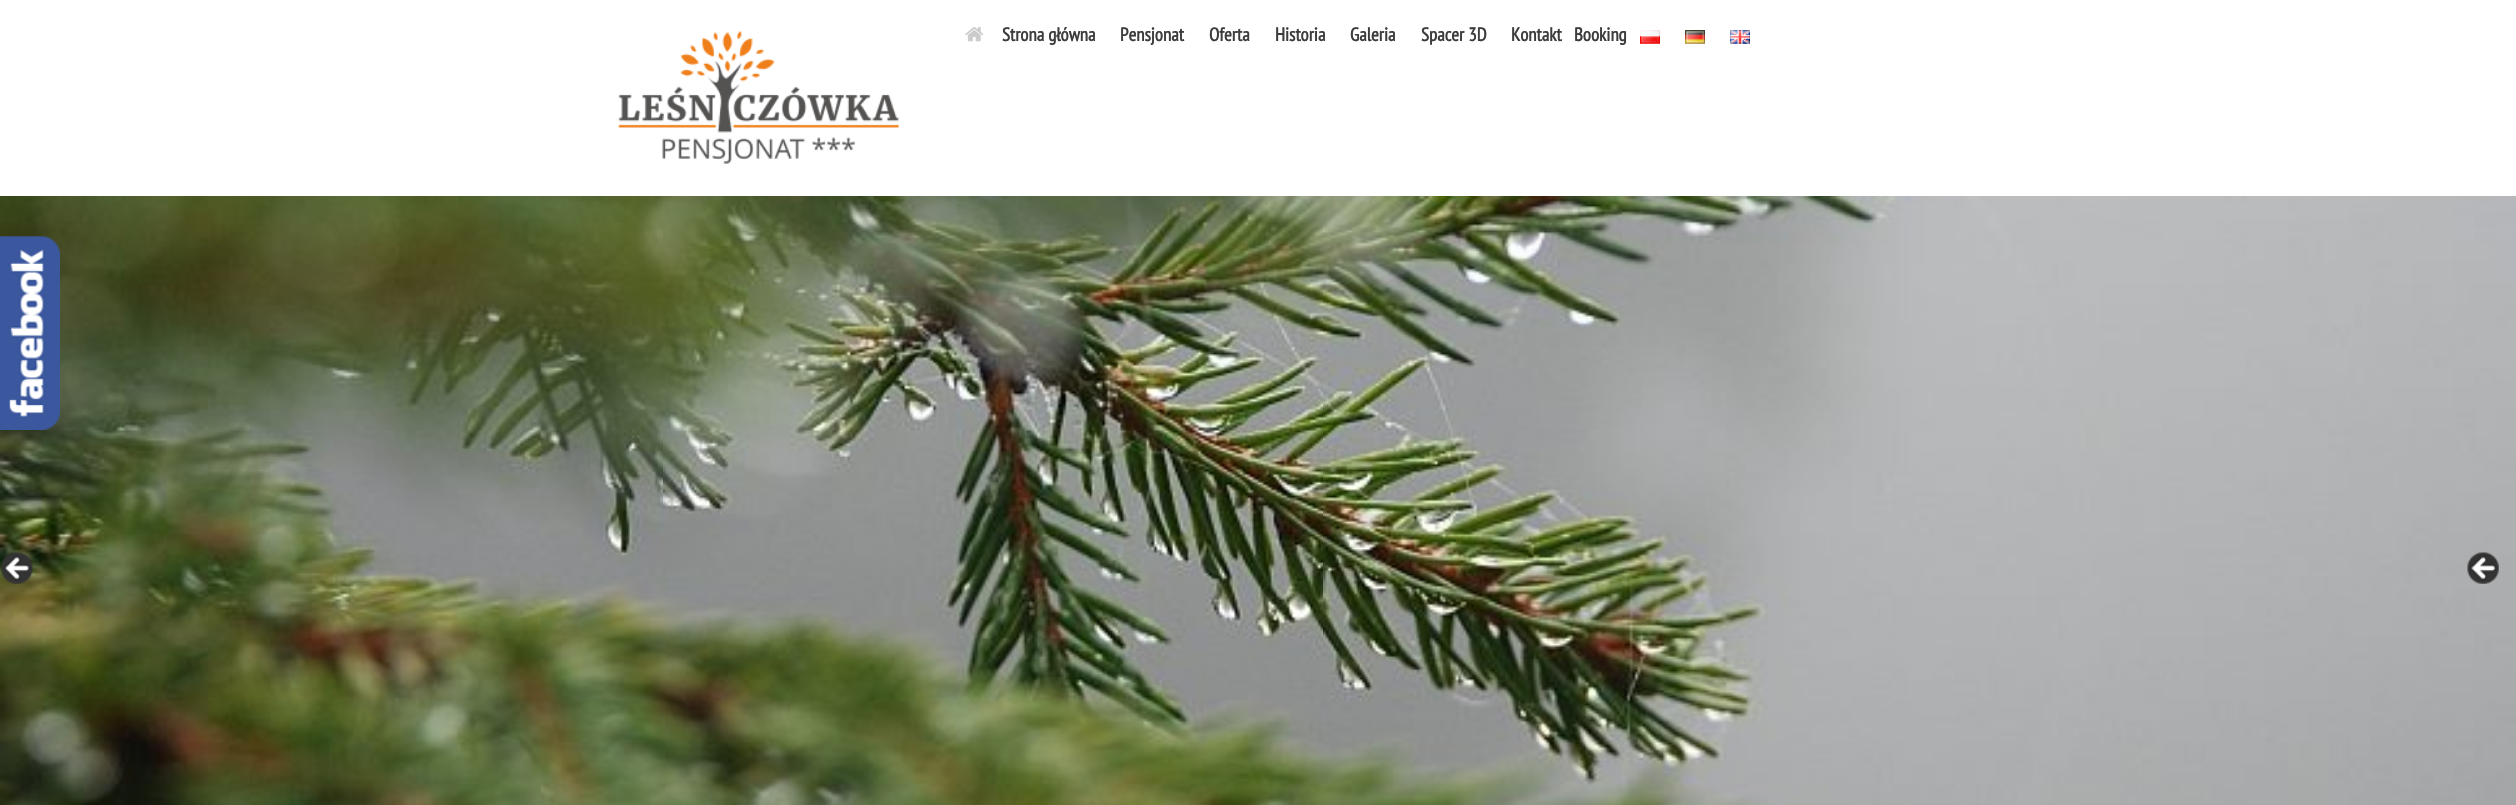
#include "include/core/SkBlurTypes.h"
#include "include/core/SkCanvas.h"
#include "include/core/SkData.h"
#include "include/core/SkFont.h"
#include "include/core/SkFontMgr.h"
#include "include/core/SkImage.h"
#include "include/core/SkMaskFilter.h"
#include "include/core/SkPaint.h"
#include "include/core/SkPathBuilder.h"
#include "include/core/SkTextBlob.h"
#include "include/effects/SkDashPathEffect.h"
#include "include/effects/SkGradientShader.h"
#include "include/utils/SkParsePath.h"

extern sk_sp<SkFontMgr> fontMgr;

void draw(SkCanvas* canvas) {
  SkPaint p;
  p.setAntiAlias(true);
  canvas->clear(SK_ColorWHITE);
  canvas->drawImageRect(SkImages::DeferredFromEncodedData(SkData::MakeFromFileName("images/1.png")), SkRect::MakeLTRB(618, 31, 899, 164), SkSamplingOptions());
  canvas->drawImageRect(SkImages::DeferredFromEncodedData(SkData::MakeFromFileName("images/2.png")), SkRect::MakeLTRB(965, 27, 984, 42), SkSamplingOptions());
  canvas->drawImageRect(SkImages::DeferredFromEncodedData(SkData::MakeFromFileName("images/3.png")), SkRect::MakeLTRB(1640, 30, 1660, 44), SkSamplingOptions());
  canvas->drawImageRect(SkImages::DeferredFromEncodedData(SkData::MakeFromFileName("images/4.png")), SkRect::MakeLTRB(1685, 30, 1705, 44), SkSamplingOptions());
  canvas->drawImageRect(SkImages::DeferredFromEncodedData(SkData::MakeFromFileName("images/5.png")), SkRect::MakeLTRB(1730, 30, 1750, 44), SkSamplingOptions());
  canvas->drawImageRect(SkImages::DeferredFromEncodedData(SkData::MakeFromFileName("images/6.png")), SkRect::MakeLTRB(0, 196, 2516, 805), SkSamplingOptions());
  canvas->drawImageRect(SkImages::DeferredFromEncodedData(SkData::MakeFromFileName("images/7.png")), SkRect::MakeLTRB(1, 552, 33, 584), SkSamplingOptions());
  canvas->drawImageRect(SkImages::DeferredFromEncodedData(SkData::MakeFromFileName("images/8.png")), SkRect::MakeLTRB(2467, 552, 2499, 584), SkSamplingOptions());
  canvas->drawImageRect(SkImages::DeferredFromEncodedData(SkData::MakeFromFileName("images/9.png")), SkRect::MakeLTRB(0, 236, 60, 430), SkSamplingOptions());
  SkFont font1(fontMgr->matchFamilyStyle("PT Sans Narrow", SkFontStyle::Bold()), 18.75f);
  font1.setSubpixel(true);
  p.setColor(SkColorSetRGB(61, 61, 61));
  canvas->drawString("Strona główna", 1002, 41, font1, p);
  canvas->drawString("Pensjonat", 1120, 41, font1, p);
  canvas->drawString("Oferta", 1209, 41, font1, p);
  canvas->drawString("Historia", 1275, 41, font1, p);
  canvas->drawString("Galeria", 1350, 41, font1, p);
  canvas->drawString("Spacer 3D", 1421, 41, font1, p);
  canvas->drawString("Kontakt", 1511, 41, font1, p);
  canvas->drawString("Booking", 1574, 41, font1, p);
}
